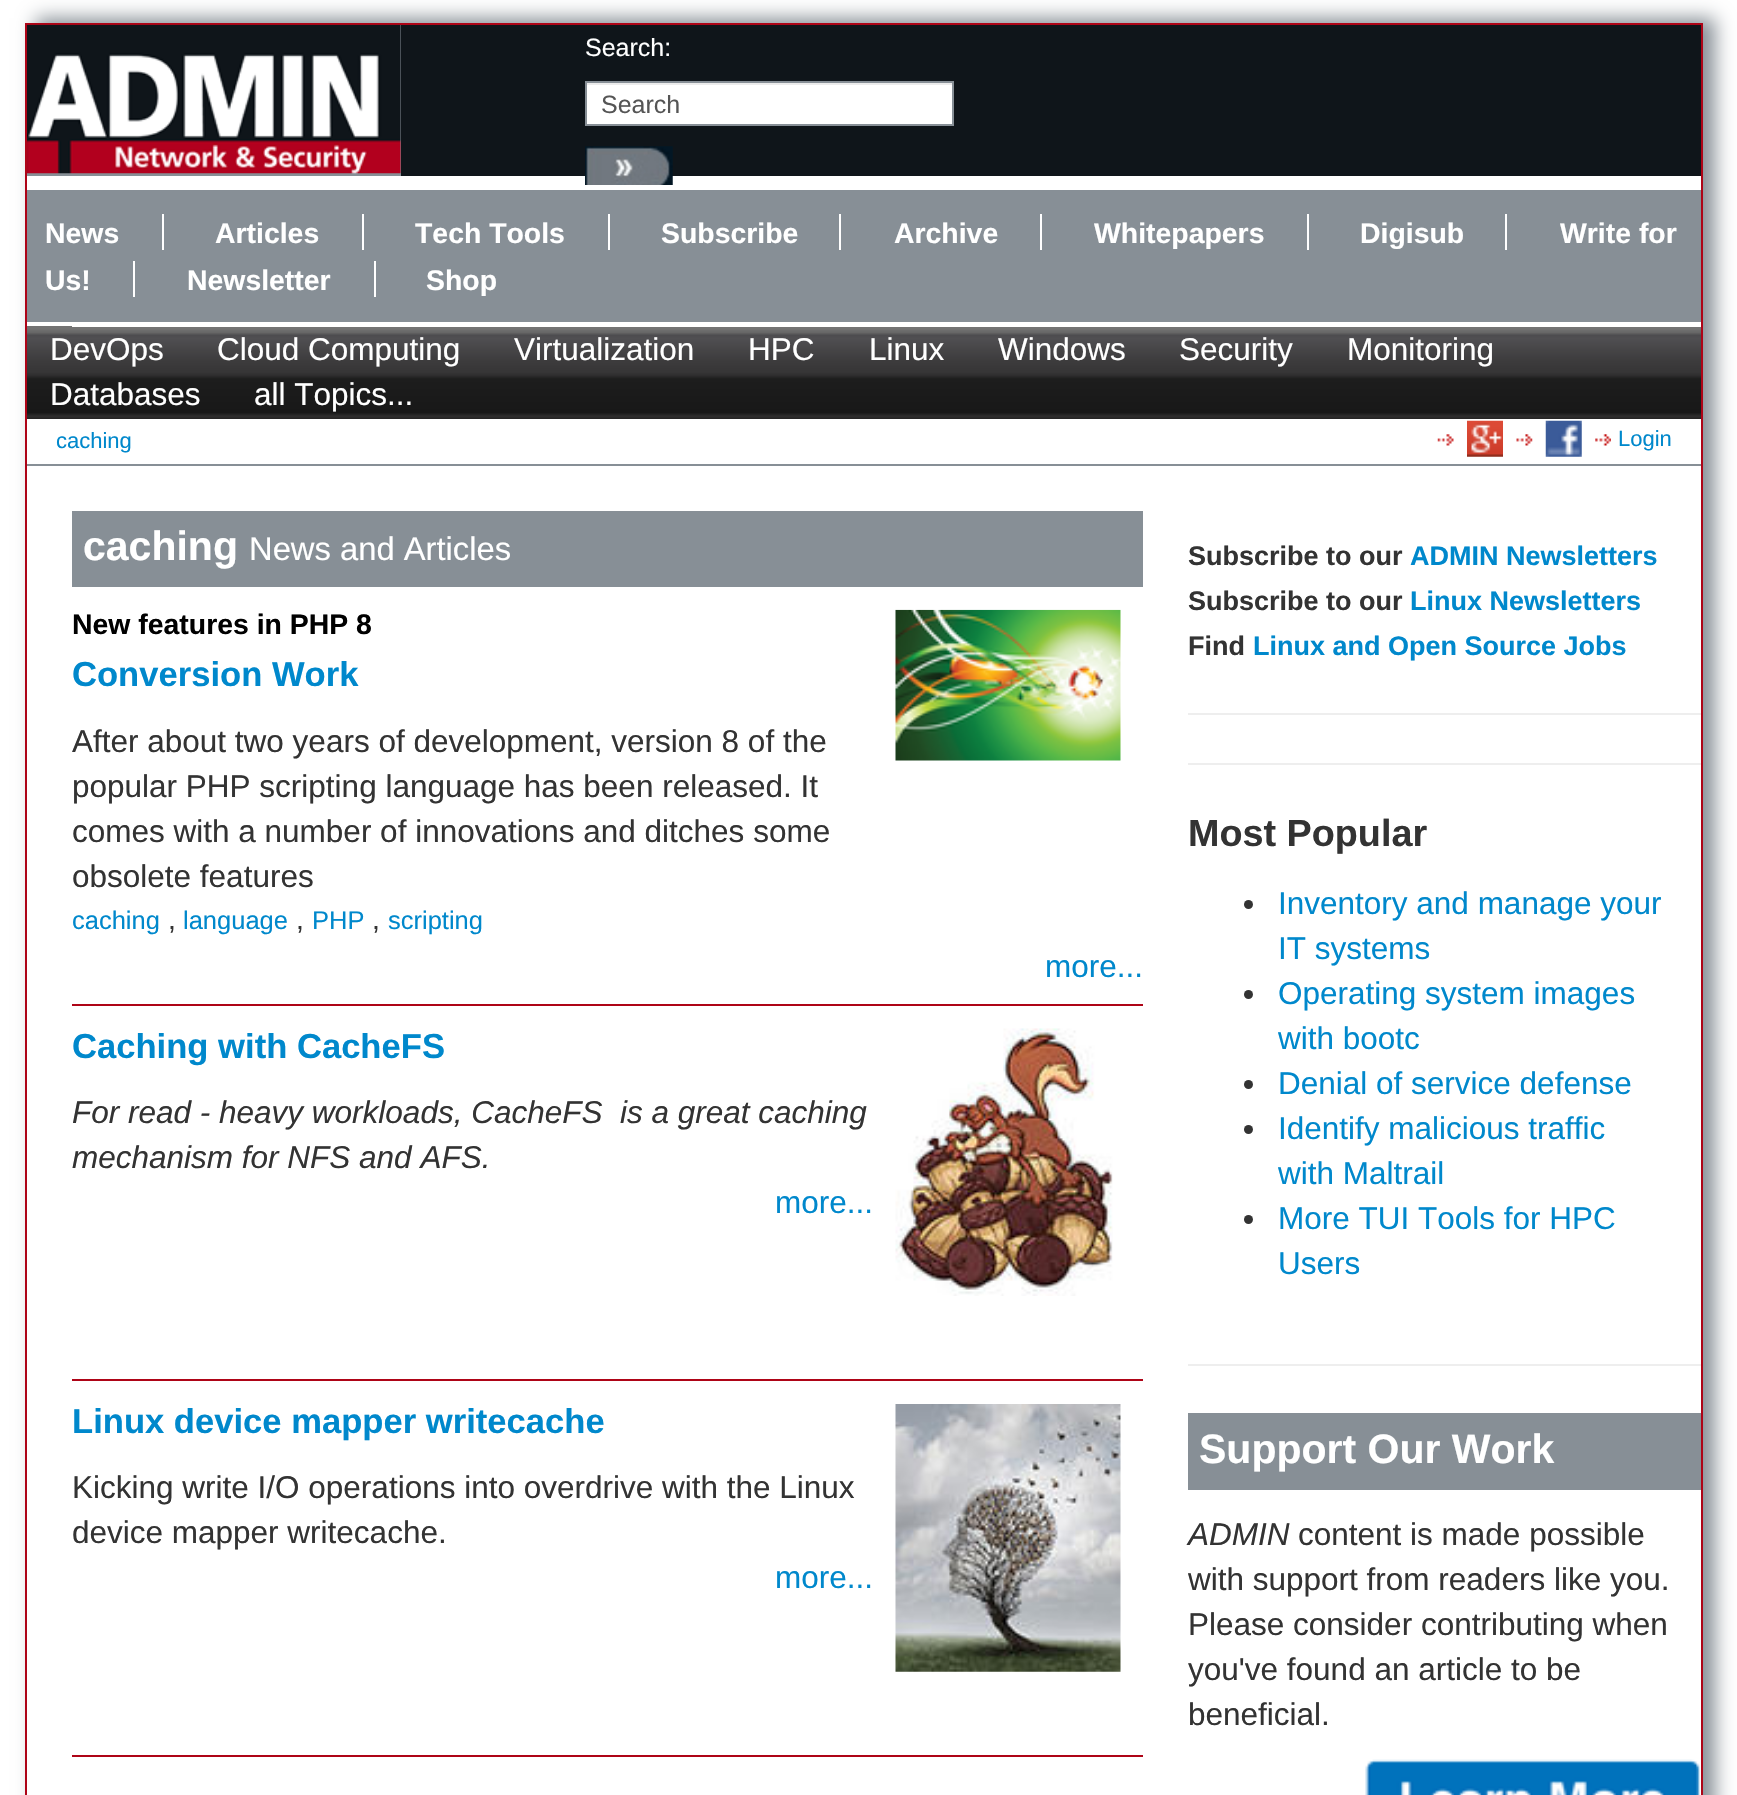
#include "include/core/SkBlurTypes.h"
#include "include/core/SkCanvas.h"
#include "include/core/SkData.h"
#include "include/core/SkFont.h"
#include "include/core/SkFontMgr.h"
#include "include/core/SkImage.h"
#include "include/core/SkMaskFilter.h"
#include "include/core/SkPaint.h"
#include "include/core/SkPathBuilder.h"
#include "include/core/SkTextBlob.h"
#include "include/effects/SkDashPathEffect.h"
#include "include/effects/SkGradientShader.h"
#include "include/utils/SkParsePath.h"

extern sk_sp<SkFontMgr> fontMgr;

void draw(SkCanvas* canvas) {
  SkPaint p;
  p.setAntiAlias(true);
  canvas->clear(SK_ColorWHITE);
  canvas->save();
  canvas->clipPath(SkPathBuilder(SkPathFillType::kEvenOdd).moveTo(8, 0).lineTo(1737, 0).lineTo(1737, 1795).lineTo(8, 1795).close().moveTo(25, 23).lineTo(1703, 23).lineTo(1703, 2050).lineTo(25, 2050).close().detach(), true);
  p.setColor(SkColorSetRGB(135, 143, 150));
  p.setMaskFilter(SkMaskFilter::MakeBlur(kNormal_SkBlurStyle, 9));
  canvas->drawRect(SkRect::MakeLTRB(36, 18, 1715, 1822), p);
  p.setMaskFilter(nullptr);
  canvas->restore();
  p.setStyle(SkPaint::kStroke_Style);
  p.setStrokeWidth(2);
  p.setColor(SkColorSetRGB(174, 4, 23));
  canvas->drawRect(SkRect::MakeLTRB(26, 24, 1702, 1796), p);
  p.setStyle(SkPaint::kFill_Style);
  p.setColor(SkColorSetRGB(15, 21, 26));
  canvas->drawRect(SkRect::MakeLTRB(401, 25, 1701, 176), p);
  p.setColor(SkColorSetRGB(135, 143, 150));
  canvas->drawRect(SkRect::MakeLTRB(27, 25, 401, 176), p);
  canvas->drawImageRect(SkImages::DeferredFromEncodedData(SkData::MakeFromFileName("images/1.png")), SkRect::MakeLTRB(27, 24, 401, 174), SkSamplingOptions());
  p.setColor(SK_ColorWHITE);
  canvas->drawRect(SkRect::MakeLTRB(587, 85, 952, 124), p);
  p.setColor(SkColorSetRGB(236, 236, 236));
  canvas->drawRect(SkRect::MakeLTRB(587, 83, 952, 85), p);
  p.setStyle(SkPaint::kStroke_Style);
  p.setColor(SkColorSetRGB(135, 143, 150));
  canvas->drawRect(SkRect::MakeLTRB(586, 82, 953, 125), p);
  canvas->drawImageRect(SkImages::DeferredFromEncodedData(SkData::MakeFromFileName("images/2.png")), SkRect::MakeLTRB(585, 146, 673, 185), SkSamplingOptions());
  p.setStyle(SkPaint::kFill_Style);
  {
    const SkColor colors[] = {SkColorSetRGB(115, 115, 115), SkColorSetRGB(115, 115, 115), SkColorSetRGB(103, 103, 103), SkColorSetRGB(77, 76, 79), SkColorSetRGB(80, 79, 82), SkColorSetRGB(61, 60, 61), SkColorSetRGB(54, 53, 54), SkColorSetRGB(47, 46, 47), SkColorSetRGB(29, 29, 29), SkColorSetRGB(24, 24, 24), SkColorSetRGB(47, 46, 46), SkColorSetRGB(37, 36, 36)};
    const float stops[] = {0, 0.03f, 0.07f, 0.1f, 0.13f, 0.37f, 0.5f, 0.53f, 0.57f, 0.93f, 0.97f, 1};
    const SkPoint ends[] = {{864, 326}, {864, 419}};
    p.setShader(SkGradientShader::MakeLinear(ends, colors, stops, 12, SkTileMode::kClamp));
    p.setAlpha(255);
  }
  canvas->drawRect(SkRect::MakeLTRB(27, 326, 1701, 419), p);
  p.setShader(nullptr);
  p.setColor(SK_ColorWHITE);
  canvas->drawRect(SkRect::MakeLTRB(72, 326, 1701, 327), p);
  p.setColor(SkColorSetRGB(135, 143, 150));
  canvas->drawRect(SkRect::MakeLTRB(27, 190, 1701, 322), p);
  p.setColor(SK_ColorWHITE);
  canvas->drawRect(SkRect::MakeLTRB(162, 214, 164, 250), p);
  canvas->drawRect(SkRect::MakeLTRB(362, 214, 364, 250), p);
  canvas->drawRect(SkRect::MakeLTRB(608, 214, 610, 250), p);
  canvas->drawRect(SkRect::MakeLTRB(839, 214, 841, 250), p);
  canvas->drawRect(SkRect::MakeLTRB(1040, 214, 1042, 250), p);
  canvas->drawRect(SkRect::MakeLTRB(1307, 214, 1309, 250), p);
  canvas->drawRect(SkRect::MakeLTRB(1505, 214, 1507, 250), p);
  canvas->drawRect(SkRect::MakeLTRB(133, 261, 135, 297), p);
  canvas->drawRect(SkRect::MakeLTRB(374, 261, 376, 297), p);
  p.setColor(SkColorSetRGB(135, 143, 150));
  canvas->drawRect(SkRect::MakeLTRB(27, 464, 1701, 466), p);
  canvas->drawImageRect(SkImages::DeferredFromEncodedData(SkData::MakeFromFileName("images/3.png")), SkRect::MakeLTRB(1437, 434, 1454, 446), SkSamplingOptions());
  canvas->drawImageRect(SkImages::DeferredFromEncodedData(SkData::MakeFromFileName("images/4.png")), SkRect::MakeLTRB(1467, 420, 1503, 457), SkSamplingOptions());
  canvas->drawImageRect(SkImages::DeferredFromEncodedData(SkData::MakeFromFileName("images/5.png")), SkRect::MakeLTRB(1516, 434, 1533, 446), SkSamplingOptions());
  canvas->drawImageRect(SkImages::DeferredFromEncodedData(SkData::MakeFromFileName("images/6.png")), SkRect::MakeLTRB(1545, 420, 1582, 457), SkSamplingOptions());
  canvas->drawImageRect(SkImages::DeferredFromEncodedData(SkData::MakeFromFileName("images/7.png")), SkRect::MakeLTRB(1595, 434, 1611, 446), SkSamplingOptions());
  canvas->drawRect(SkRect::MakeLTRB(72, 511, 1143, 587), p);
  p.setColor(SkColorSetRGB(174, 4, 23));
  canvas->drawRect(SkRect::MakeLTRB(72, 1004, 1143, 1006), p);
  canvas->drawImageRect(SkImages::DeferredFromEncodedData(SkData::MakeFromFileName("images/8.png")), SkRect::MakeLTRB(895, 609, 1121, 761), SkSamplingOptions());
  canvas->drawRect(SkRect::MakeLTRB(72, 1379, 1143, 1381), p);
  canvas->drawImageRect(SkImages::DeferredFromEncodedData(SkData::MakeFromFileName("images/9.png")), SkRect::MakeLTRB(895, 1028, 1113, 1296), SkSamplingOptions());
  canvas->drawRect(SkRect::MakeLTRB(72, 1755, 1143, 1757), p);
  canvas->drawImageRect(SkImages::DeferredFromEncodedData(SkData::MakeFromFileName("images/10.png")), SkRect::MakeLTRB(895, 1404, 1121, 1672), SkSamplingOptions());
  p.setColor(SkColorSetRGB(238, 238, 238));
  canvas->drawRect(SkRect::MakeLTRB(1188, 713, 1701, 715), p);
  canvas->drawRect(SkRect::MakeLTRB(1188, 763, 1701, 765), p);
  p.setColor(SkColorSetRGB(51, 51, 51));
  canvas->drawCircle(1248.5f, 904.5f, 4.5f, p);
  canvas->drawCircle(1248.5f, 994.5f, 4.5f, p);
  canvas->drawCircle(1248.5f, 1084.5f, 4.5f, p);
  canvas->drawCircle(1248.5f, 1129.5f, 4.5f, p);
  canvas->drawCircle(1248.5f, 1219.5f, 4.5f, p);
  p.setColor(SkColorSetRGB(238, 238, 238));
  canvas->drawRect(SkRect::MakeLTRB(1188, 1364, 1701, 1366), p);
  p.setColor(SkColorSetRGB(135, 143, 150));
  canvas->drawRect(SkRect::MakeLTRB(1188, 1413, 1701, 1490), p);
  canvas->drawImageRect(SkImages::DeferredFromEncodedData(SkData::MakeFromFileName("images/11.png")), SkRect::MakeLTRB(1365, 1759, 1700, 1795), SkSamplingOptions());
  SkFont font1(fontMgr->matchFamilyStyle("Liberation Sans", SkFontStyle::Normal()), 25);
  font1.setSubpixel(true);
  p.setColor(SK_ColorWHITE);
  canvas->drawString("Search:", 585, 56, font1, p);
  p.setColor(SkColorSetRGB(85, 85, 85));
  canvas->drawString("Search", 601, 113, font1, p);
  SkFont font2(fontMgr->matchFamilyStyle("Liberation Sans", SkFontStyle::Bold()), 28.4f);
  font2.setSubpixel(true);
  p.setColor(SK_ColorWHITE);
  canvas->drawString("News", 45, 243, font2, p);
  canvas->drawString("Articles", 215, 243, font2, p);
  canvas->drawString("Tech Tools", 415, 243, font2, p);
  canvas->drawString("Subscribe", 661, 243, font2, p);
  canvas->drawString("Archive", 894, 243, font2, p);
  canvas->drawString("Whitepapers", 1094, 243, font2, p);
  canvas->drawString("Digisub", 1360, 243, font2, p);
  canvas->drawString("Write for", 1560, 243, font2, p);
  canvas->drawString("Us!", 45, 290, font2, p);
  canvas->drawString("Newsletter", 187, 290, font2, p);
  canvas->drawString("Shop", 426, 290, font2, p);
  SkFont font3(fontMgr->matchFamilyStyle("Liberation Sans", SkFontStyle::Normal()), 31.5f);
  font3.setSubpixel(true);
  canvas->drawString("DevOps", 50, 360, font3, p);
  canvas->drawString("Cloud Computing", 217, 360, font3, p);
  canvas->drawString("Virtualization", 514, 360, font3, p);
  canvas->drawString("HPC", 748, 360, font3, p);
  canvas->drawString("Linux", 869, 360, font3, p);
  canvas->drawString("Windows", 998, 360, font3, p);
  canvas->drawString("Security", 1179, 360, font3, p);
  canvas->drawString("Monitoring", 1347, 360, font3, p);
  canvas->drawString("Databases", 50, 405, font3, p);
  canvas->drawString("all Topics...", 254, 405, font3, p);
  SkFont font4(fontMgr->matchFamilyStyle("Liberation Sans", SkFontStyle::Normal()), 22);
  font4.setSubpixel(true);
  p.setColor(SkColorSetRGB(0, 136, 204));
  canvas->drawString("caching", 56, 448, font4, p);
  canvas->drawString("Login", 1618, 446, font4, p);
  SkFont font5(fontMgr->matchFamilyStyle("Liberation Sans", SkFontStyle::Bold()), 41);
  font5.setSubpixel(true);
  p.setColor(SK_ColorWHITE);
  canvas->drawString("caching", 83, 560, font5, p);
  SkFont font6(fontMgr->matchFamilyStyle("Liberation Sans", SkFontStyle::Normal()), 32.75f);
  font6.setSubpixel(true);
  canvas->drawString("News and Articles", 249, 560, font6, p);
  p.setColor(SK_ColorBLACK);
  canvas->drawString("New features in PHP 8", 72, 634, font2, p);
  SkFont font7(fontMgr->matchFamilyStyle("Liberation Sans", SkFontStyle::Bold()), 34.6f);
  font7.setSubpixel(true);
  p.setColor(SkColorSetRGB(0, 136, 204));
  canvas->drawString("Conversion Work", 72, 686, font7, p);
  p.setColor(SkColorSetRGB(51, 51, 51));
  canvas->drawString("After about two years of development, version 8 of the", 72, 752, font3, p);
  canvas->drawString("popular PHP scripting language has been released. It", 72, 797, font3, p);
  canvas->drawString("comes with a number of innovations and ditches some", 72, 842, font3, p);
  canvas->drawString("obsolete features", 72, 887, font3, p);
  SkFont font8(fontMgr->matchFamilyStyle("Liberation Sans", SkFontStyle::Normal()), 25.5f);
  font8.setSubpixel(true);
  p.setColor(SkColorSetRGB(0, 136, 204));
  canvas->drawString("caching", 72, 929, font8, p);
  SkFont font9(fontMgr->matchFamilyStyle("Liberation Sans", SkFontStyle::Normal()), 28.4f);
  font9.setSubpixel(true);
  p.setColor(SkColorSetRGB(51, 51, 51));
  canvas->drawString(",", 168, 929, font9, p);
  p.setColor(SkColorSetRGB(0, 136, 204));
  canvas->drawString("language", 183, 929, font8, p);
  p.setColor(SkColorSetRGB(51, 51, 51));
  canvas->drawString(",", 296, 929, font9, p);
  p.setColor(SkColorSetRGB(0, 136, 204));
  canvas->drawString("PHP", 312, 929, font8, p);
  p.setColor(SkColorSetRGB(51, 51, 51));
  canvas->drawString(",", 372, 929, font9, p);
  p.setColor(SkColorSetRGB(0, 136, 204));
  canvas->drawString("scripting", 388, 929, font8, p);
  canvas->drawString("more...", 1045, 977, font3, p);
  canvas->drawString("Caching with CacheFS", 72, 1058, font7, p);
  SkFont font10(fontMgr->matchFamilyStyle("Liberation Sans", SkFontStyle::Italic()), 31.5f);
  font10.setSubpixel(true);
  p.setColor(SkColorSetRGB(51, 51, 51));
  canvas->drawString("For read - heavy workloads, CacheFS", 72, 1123, font10, p);
  canvas->drawString("is a great caching", 620, 1123, font10, p);
  canvas->drawString("mechanism for NFS and AFS.", 72, 1168, font10, p);
  p.setColor(SkColorSetRGB(0, 136, 204));
  canvas->drawString("more...", 775, 1213, font3, p);
  canvas->drawString("Linux device mapper writecache", 72, 1433, font7, p);
  p.setColor(SkColorSetRGB(51, 51, 51));
  canvas->drawString("Kicking write I/O operations into overdrive with the Linux", 72, 1498, font3, p);
  canvas->drawString("device mapper writecache.", 72, 1543, font3, p);
  p.setColor(SkColorSetRGB(0, 136, 204));
  canvas->drawString("more...", 775, 1588, font3, p);
  SkFont font11(fontMgr->matchFamilyStyle("Liberation Sans", SkFontStyle::Bold()), 27);
  font11.setSubpixel(true);
  p.setColor(SkColorSetRGB(51, 51, 51));
  canvas->drawString("Subscribe to our", 1188, 565, font11, p);
  p.setColor(SkColorSetRGB(0, 136, 204));
  canvas->drawString("ADMIN Newsletters", 1410, 565, font11, p);
  p.setColor(SkColorSetRGB(51, 51, 51));
  canvas->drawString("Subscribe to our", 1188, 610, font11, p);
  p.setColor(SkColorSetRGB(0, 136, 204));
  canvas->drawString("Linux Newsletters", 1410, 610, font11, p);
  p.setColor(SkColorSetRGB(51, 51, 51));
  canvas->drawString("Find", 1188, 655, font11, p);
  p.setColor(SkColorSetRGB(0, 136, 204));
  canvas->drawString("Linux and Open Source Jobs", 1253, 655, font11, p);
  SkFont font12(fontMgr->matchFamilyStyle("Liberation Sans", SkFontStyle::Bold()), 37.75f);
  font12.setSubpixel(true);
  p.setColor(SkColorSetRGB(51, 51, 51));
  canvas->drawString("Most Popular", 1188, 846, font12, p);
  p.setColor(SkColorSetRGB(0, 136, 204));
  canvas->drawString("Inventory and manage your", 1278, 914, font3, p);
  canvas->drawString("IT systems", 1278, 959, font3, p);
  canvas->drawString("Operating system images", 1278, 1004, font3, p);
  canvas->drawString("with bootc", 1278, 1049, font3, p);
  canvas->drawString("Denial of service defense", 1278, 1094, font3, p);
  canvas->drawString("Identify malicious traffic", 1278, 1139, font3, p);
  canvas->drawString("with Maltrail", 1278, 1184, font3, p);
  canvas->drawString("More TUI Tools for HPC", 1278, 1229, font3, p);
  canvas->drawString("Users", 1278, 1274, font3, p);
  p.setColor(SK_ColorWHITE);
  canvas->drawString("Support Our Work", 1199, 1463, font5, p);
  p.setColor(SkColorSetRGB(51, 51, 51));
  canvas->drawString("ADMIN", 1188, 1545, font10, p);
  canvas->drawString("content is made possible", 1298, 1545, font3, p);
  canvas->drawString("with support from readers like you.", 1188, 1590, font3, p);
  canvas->drawString("Please consider contributing when", 1188, 1635, font3, p);
  canvas->drawString("you've found an article to be", 1188, 1680, font3, p);
  canvas->drawString("beneficial.", 1188, 1725, font3, p);
}
